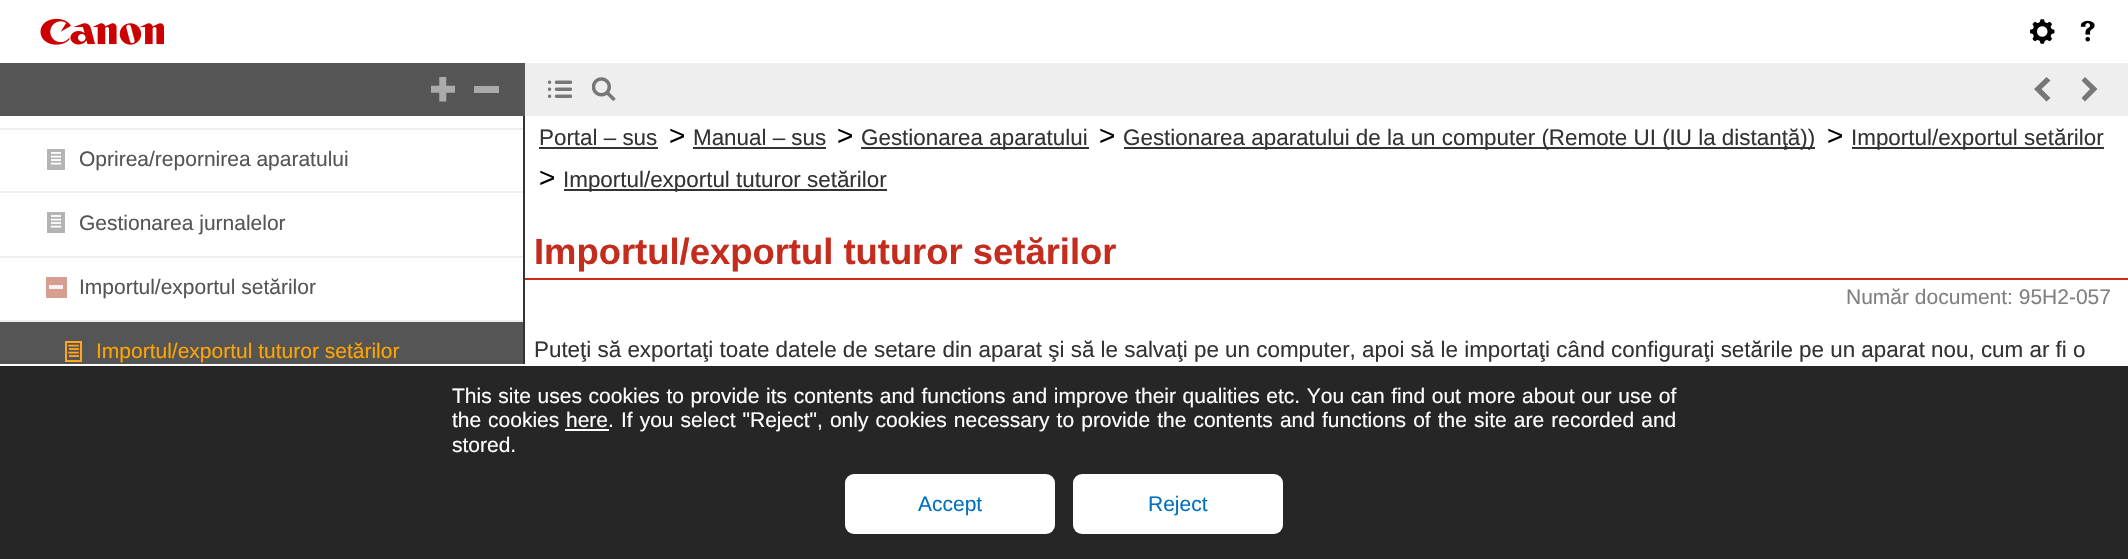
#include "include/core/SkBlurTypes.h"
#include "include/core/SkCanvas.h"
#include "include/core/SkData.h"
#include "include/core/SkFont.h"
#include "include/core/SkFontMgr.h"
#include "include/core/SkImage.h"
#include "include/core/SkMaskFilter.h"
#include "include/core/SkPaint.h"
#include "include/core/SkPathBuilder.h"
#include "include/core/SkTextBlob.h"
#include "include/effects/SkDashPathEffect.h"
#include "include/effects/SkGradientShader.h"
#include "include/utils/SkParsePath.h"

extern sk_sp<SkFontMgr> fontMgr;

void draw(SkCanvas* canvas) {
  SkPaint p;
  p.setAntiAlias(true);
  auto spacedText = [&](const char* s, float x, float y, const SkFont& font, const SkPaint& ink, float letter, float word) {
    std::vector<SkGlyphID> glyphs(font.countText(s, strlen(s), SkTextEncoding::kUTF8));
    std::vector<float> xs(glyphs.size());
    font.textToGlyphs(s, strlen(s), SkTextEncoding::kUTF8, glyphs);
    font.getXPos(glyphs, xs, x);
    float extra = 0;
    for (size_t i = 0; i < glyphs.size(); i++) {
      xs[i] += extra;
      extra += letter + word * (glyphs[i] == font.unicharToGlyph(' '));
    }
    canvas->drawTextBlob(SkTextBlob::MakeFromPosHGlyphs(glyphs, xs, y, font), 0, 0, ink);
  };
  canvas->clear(SK_ColorWHITE);
  canvas->drawImageRect(SkImages::DeferredFromEncodedData(SkData::MakeFromFileName("images/1.png")), SkRect::MakeLTRB(40, 18, 164, 45), SkSamplingOptions());
  canvas->drawImageRect(SkImages::DeferredFromEncodedData(SkData::MakeFromFileName("images/2.png")), SkRect::MakeLTRB(2030, 19, 2055, 44), SkSamplingOptions());
  canvas->drawImageRect(SkImages::DeferredFromEncodedData(SkData::MakeFromFileName("images/3.png")), SkRect::MakeLTRB(2080, 20, 2095, 42), SkSamplingOptions());
  p.setColor(SkColorSetRGB(85, 85, 85));
  canvas->drawRect(SkRect::MakeLTRB(0, 63, 525, 116), p);
  canvas->drawImageRect(SkImages::DeferredFromEncodedData(SkData::MakeFromFileName("images/4.png")), SkRect::MakeLTRB(431, 77, 455, 102), SkSamplingOptions());
  p.setColor(SkColorSetRGB(170, 170, 170));
  canvas->drawRect(SkRect::MakeLTRB(474, 86, 499, 93), p);
  p.setColor(SkColorSetRGB(238, 238, 238));
  canvas->drawRect(SkRect::MakeLTRB(525, 63, 2128, 116), p);
  canvas->drawImageRect(SkImages::DeferredFromEncodedData(SkData::MakeFromFileName("images/5.png")), SkRect::MakeLTRB(548, 80, 572, 98), SkSamplingOptions());
  canvas->drawImageRect(SkImages::DeferredFromEncodedData(SkData::MakeFromFileName("images/6.png")), SkRect::MakeLTRB(592, 77, 616, 102), SkSamplingOptions());
  p.setColor(SkColorSetRGB(119, 119, 119));
  canvas->drawPath(SkPathBuilder().moveTo(2050.5f, 98).lineTo(2041.5f, 89).lineTo(2050.5f, 80.5f).lineTo(2046.5f, 77).lineTo(2034, 89).lineTo(2046.5f, 101.5f).close().detach(), p);
  canvas->drawPath(SkPathBuilder().moveTo(2081.5f, 80.5f).lineTo(2090, 89).lineTo(2081.5f, 98).lineTo(2085, 101.5f).lineTo(2097.5f, 89).lineTo(2085, 77).close().detach(), p);
  p.setColor(SkColorSetRGB(51, 51, 51));
  canvas->drawRect(SkRect::MakeLTRB(523, 116, 525, 364), p);
  p.setColor(SkColorSetRGB(238, 238, 238));
  canvas->drawRect(SkRect::MakeLTRB(0, 128, 523, 130), p);
  canvas->drawRect(SkRect::MakeLTRB(0, 191, 523, 193), p);
  canvas->drawImageRect(SkImages::DeferredFromEncodedData(SkData::MakeFromFileName("images/7.png")), SkRect::MakeLTRB(47, 149, 65, 170), SkSamplingOptions());
  canvas->drawRect(SkRect::MakeLTRB(0, 256, 523, 258), p);
  canvas->drawImageRect(SkImages::DeferredFromEncodedData(SkData::MakeFromFileName("images/7.png")), SkRect::MakeLTRB(47, 212, 65, 233), SkSamplingOptions());
  canvas->drawRect(SkRect::MakeLTRB(0, 320, 523, 322), p);
  p.setColor(SkColorSetRGB(215, 158, 145));
  canvas->drawRect(SkRect::MakeLTRB(46, 277, 67, 298), p);
  p.setColor(SkColorSetRGB(250, 243, 241));
  canvas->drawRect(SkRect::MakeLTRB(49, 285, 63, 289), p);
  p.setColor(SkColorSetRGB(85, 85, 85));
  canvas->drawRect(SkRect::MakeLTRB(0, 322, 523, 364), p);
  canvas->drawImageRect(SkImages::DeferredFromEncodedData(SkData::MakeFromFileName("images/8.png")), SkRect::MakeLTRB(65, 341, 82, 362), SkSamplingOptions());
  p.setColor(SkColorSetRGB(51, 51, 51));
  canvas->drawRect(SkRect::MakeLTRB(539, 147, 658, 149), p);
  canvas->drawRect(SkRect::MakeLTRB(693, 147, 826, 149), p);
  canvas->drawRect(SkRect::MakeLTRB(861, 147, 1089, 149), p);
  canvas->drawRect(SkRect::MakeLTRB(1124, 147, 1815, 149), p);
  canvas->drawRect(SkRect::MakeLTRB(1852, 147, 2104, 149), p);
  canvas->drawRect(SkRect::MakeLTRB(564, 189, 887, 191), p);
  p.setColor(SkColorSetRGB(208, 43, 20));
  canvas->drawRect(SkRect::MakeLTRB(525, 278, 2128, 280), p);
  p.setColor(SkColorSetRGB(38, 38, 38));
  canvas->drawRect(SkRect::MakeLTRB(0, 366, 2128, 559), p);
  p.setColor(SK_ColorWHITE);
  canvas->drawRect(SkRect::MakeLTRB(565, 429, 609, 431), p);
  canvas->drawRoundRect(SkRect::MakeLTRB(845, 474, 1055, 534), 9, 9, p);
  canvas->drawRoundRect(SkRect::MakeLTRB(1073, 474, 1283, 534), 9, 9, p);
  SkFont font1(fontMgr->matchFamilyStyle("Liberation Sans", SkFontStyle::Normal()), 21);
  font1.setSubpixel(true);
  p.setColor(SkColorSetRGB(85, 85, 85));
  canvas->drawString("Oprirea/repornirea aparatului", 79, 166, font1, p);
  canvas->drawString("Gestionarea jurnalelor", 79, 230, font1, p);
  canvas->drawString("Importul/exportul setărilor", 79, 294, font1, p);
  p.setColor(SkColorSetRGB(255, 165, 0));
  canvas->drawString("Importul/exportul tuturor setărilor", 96, 358, font1, p);
  SkFont font2(fontMgr->matchFamilyStyle("Liberation Sans", SkFontStyle::Normal()), 22.4f);
  font2.setSubpixel(true);
  p.setColor(SkColorSetRGB(51, 51, 51));
  canvas->drawString("Portal – sus", 539, 145, font2, p);
  SkFont font3(fontMgr->matchFamilyStyle("Liberation Sans", SkFontStyle::Normal()), 28);
  font3.setSubpixel(true);
  p.setColor(SK_ColorBLACK);
  canvas->drawString(">", 669, 145, font3, p);
  p.setColor(SkColorSetRGB(51, 51, 51));
  canvas->drawString("Manual – sus", 693, 145, font2, p);
  p.setColor(SK_ColorBLACK);
  canvas->drawString(">", 837, 145, font3, p);
  p.setColor(SkColorSetRGB(51, 51, 51));
  canvas->drawString("Gestionarea aparatului", 861, 145, font2, p);
  p.setColor(SK_ColorBLACK);
  canvas->drawString(">", 1099, 145, font3, p);
  p.setColor(SkColorSetRGB(51, 51, 51));
  canvas->drawString("Gestionarea aparatului de la un computer (Remote UI (IU la distanţă))", 1123, 145, font2, p);
  p.setColor(SK_ColorBLACK);
  canvas->drawString(">", 1827, 145, font3, p);
  p.setColor(SkColorSetRGB(51, 51, 51));
  canvas->drawString("Importul/exportul setărilor", 1851, 145, font2, p);
  p.setColor(SK_ColorBLACK);
  canvas->drawString(">", 539, 187, font3, p);
  p.setColor(SkColorSetRGB(51, 51, 51));
  canvas->drawString("Importul/exportul tuturor setărilor", 563, 187, font2, p);
  SkFont font4(fontMgr->matchFamilyStyle("Liberation Sans", SkFontStyle::Bold()), 36.4f);
  font4.setSubpixel(true);
  p.setColor(SkColorSetRGB(196, 44, 30));
  canvas->drawString("Importul/exportul tuturor setărilor", 534, 264, font4, p);
  p.setColor(SkColorSetRGB(128, 128, 128));
  canvas->drawString("Număr document: 95H2-057", 1846, 304, font1, p);
  p.setColor(SkColorSetRGB(51, 51, 51));
  canvas->drawString("Puteţi să exportaţi toate datele de setare din aparat şi să le salvaţi pe un computer, apoi să le importaţi când configuraţi setările pe un aparat nou, cum ar fi o", 534, 357, font2, p);
  p.setColor(SK_ColorWHITE);
  spacedText("This site uses cookies to provide its contents and functions and improve their qualities etc. You can find out more about our use of", 452, 403, font1, p, 0, 0.8f);
  spacedText("the cookies", 452, 427, font1, p, 0, 1);
  canvas->drawString("here", 566, 427, font1, p);
  spacedText(". If you select \"Reject\", only cookies necessary to provide the contents and functions of the site are recorded and", 608, 427, font1, p, 0, 1.25f);
  canvas->drawString("stored.", 452, 452, font1, p);
  p.setColor(SkColorSetRGB(0, 112, 192));
  canvas->drawString("Accept", 918, 511, font1, p);
  canvas->drawString("Reject", 1148, 511, font1, p);
}
